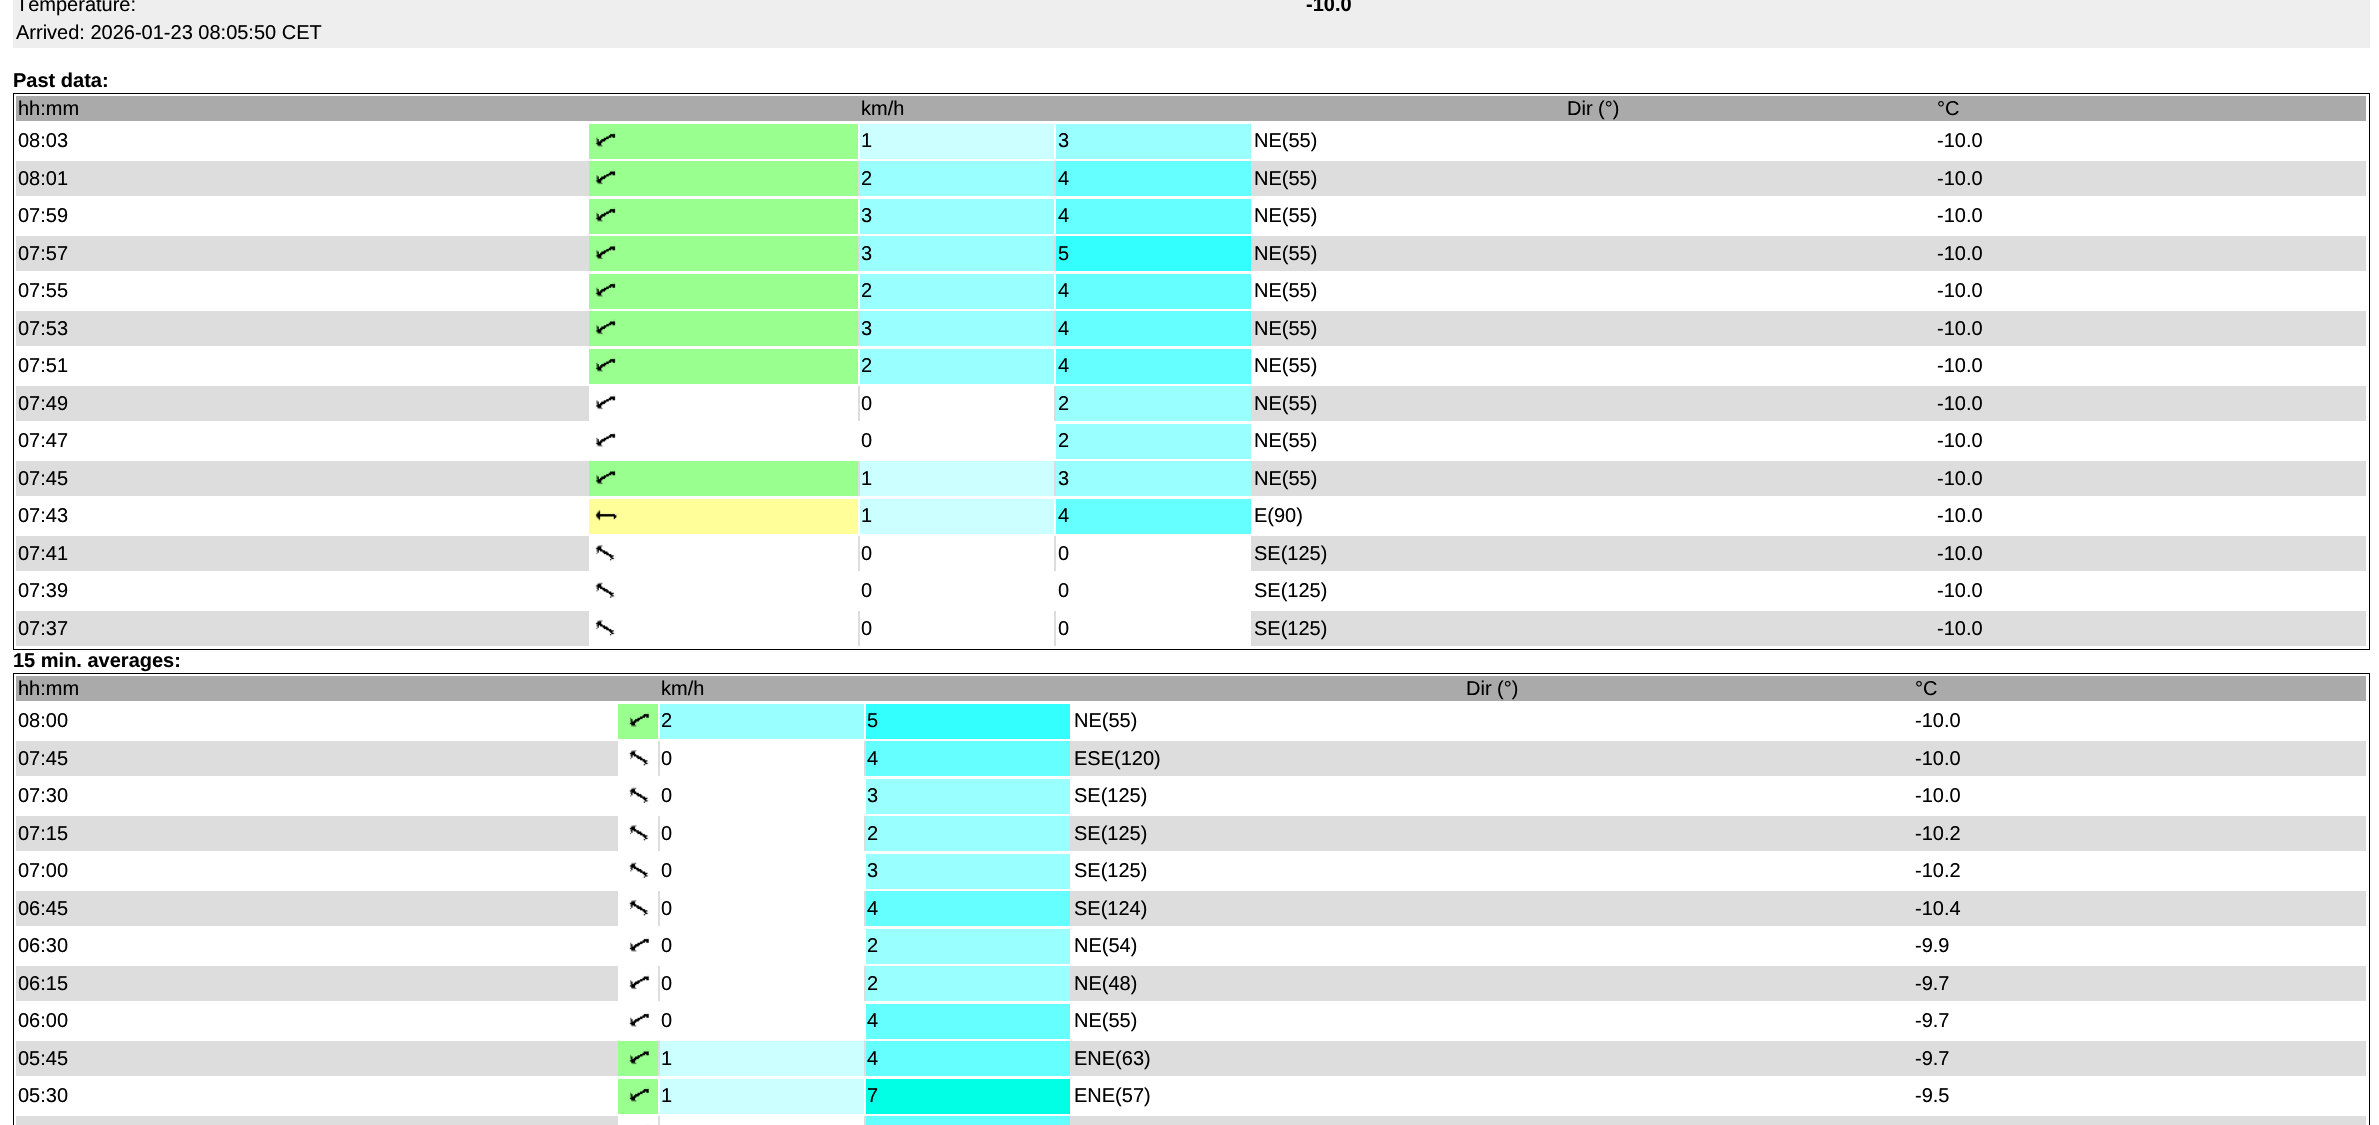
#include "include/core/SkBlurTypes.h"
#include "include/core/SkCanvas.h"
#include "include/core/SkData.h"
#include "include/core/SkFont.h"
#include "include/core/SkFontMgr.h"
#include "include/core/SkImage.h"
#include "include/core/SkMaskFilter.h"
#include "include/core/SkPaint.h"
#include "include/core/SkPathBuilder.h"
#include "include/core/SkTextBlob.h"
#include "include/effects/SkDashPathEffect.h"
#include "include/effects/SkGradientShader.h"
#include "include/utils/SkParsePath.h"

extern sk_sp<SkFontMgr> fontMgr;

void draw(SkCanvas* canvas) {
  SkPaint p;
  p.setAntiAlias(true);
  canvas->clear(SK_ColorWHITE);
  p.setColor(SkColorSetRGB(238, 238, 238));
  canvas->drawRect(SkRect::MakeLTRB(13, 0, 2370, 48), p);
  p.setStyle(SkPaint::kStroke_Style);
  p.setStrokeWidth(1);
  p.setColor(SK_ColorBLACK);
  canvas->drawRect(SkRect::MakeLTRB(13.5f, 93.5f, 2369.5f, 649.5f), p);
  p.setStyle(SkPaint::kFill_Style);
  p.setColor(SkColorSetRGB(170, 170, 170));
  canvas->drawRect(SkRect::MakeLTRB(16, 96, 2366, 121), p);
  p.setColor(SkColorSetRGB(153, 255, 143));
  canvas->drawRect(SkRect::MakeLTRB(589, 124, 858, 159), p);
  canvas->drawImageRect(SkImages::DeferredFromEncodedData(SkData::MakeFromFileName("images/1.png")), SkRect::MakeLTRB(595, 132, 616, 147), SkSamplingOptions());
  p.setColor(SkColorSetRGB(204, 255, 255));
  canvas->drawRect(SkRect::MakeLTRB(860, 124, 1054, 159), p);
  p.setColor(SkColorSetRGB(153, 255, 255));
  canvas->drawRect(SkRect::MakeLTRB(1056, 124, 1251, 159), p);
  p.setColor(SkColorSetRGB(221, 221, 221));
  canvas->drawRect(SkRect::MakeLTRB(16, 161, 2366, 196), p);
  p.setColor(SkColorSetRGB(153, 255, 143));
  canvas->drawRect(SkRect::MakeLTRB(589, 161, 858, 196), p);
  canvas->drawImageRect(SkImages::DeferredFromEncodedData(SkData::MakeFromFileName("images/2.png")), SkRect::MakeLTRB(595, 169, 616, 185), SkSamplingOptions());
  p.setColor(SkColorSetRGB(153, 255, 255));
  canvas->drawRect(SkRect::MakeLTRB(860, 161, 1054, 196), p);
  p.setColor(SkColorSetRGB(102, 255, 255));
  canvas->drawRect(SkRect::MakeLTRB(1056, 161, 1251, 196), p);
  p.setColor(SkColorSetRGB(153, 255, 143));
  canvas->drawRect(SkRect::MakeLTRB(589, 199, 858, 234), p);
  canvas->drawImageRect(SkImages::DeferredFromEncodedData(SkData::MakeFromFileName("images/1.png")), SkRect::MakeLTRB(595, 207, 616, 222), SkSamplingOptions());
  p.setColor(SkColorSetRGB(153, 255, 255));
  canvas->drawRect(SkRect::MakeLTRB(860, 199, 1054, 234), p);
  p.setColor(SkColorSetRGB(102, 255, 255));
  canvas->drawRect(SkRect::MakeLTRB(1056, 199, 1251, 234), p);
  p.setColor(SkColorSetRGB(221, 221, 221));
  canvas->drawRect(SkRect::MakeLTRB(16, 236, 2366, 271), p);
  p.setColor(SkColorSetRGB(153, 255, 143));
  canvas->drawRect(SkRect::MakeLTRB(589, 236, 858, 271), p);
  canvas->drawImageRect(SkImages::DeferredFromEncodedData(SkData::MakeFromFileName("images/2.png")), SkRect::MakeLTRB(595, 244, 616, 260), SkSamplingOptions());
  p.setColor(SkColorSetRGB(153, 255, 255));
  canvas->drawRect(SkRect::MakeLTRB(860, 236, 1054, 271), p);
  p.setColor(SkColorSetRGB(51, 255, 255));
  canvas->drawRect(SkRect::MakeLTRB(1056, 236, 1251, 271), p);
  p.setColor(SkColorSetRGB(153, 255, 143));
  canvas->drawRect(SkRect::MakeLTRB(589, 274, 858, 309), p);
  canvas->drawImageRect(SkImages::DeferredFromEncodedData(SkData::MakeFromFileName("images/1.png")), SkRect::MakeLTRB(595, 282, 616, 297), SkSamplingOptions());
  p.setColor(SkColorSetRGB(153, 255, 255));
  canvas->drawRect(SkRect::MakeLTRB(860, 274, 1054, 309), p);
  p.setColor(SkColorSetRGB(102, 255, 255));
  canvas->drawRect(SkRect::MakeLTRB(1056, 274, 1251, 309), p);
  p.setColor(SkColorSetRGB(221, 221, 221));
  canvas->drawRect(SkRect::MakeLTRB(16, 311, 2366, 346), p);
  p.setColor(SkColorSetRGB(153, 255, 143));
  canvas->drawRect(SkRect::MakeLTRB(589, 311, 858, 346), p);
  canvas->drawImageRect(SkImages::DeferredFromEncodedData(SkData::MakeFromFileName("images/2.png")), SkRect::MakeLTRB(595, 319, 616, 335), SkSamplingOptions());
  p.setColor(SkColorSetRGB(153, 255, 255));
  canvas->drawRect(SkRect::MakeLTRB(860, 311, 1054, 346), p);
  p.setColor(SkColorSetRGB(102, 255, 255));
  canvas->drawRect(SkRect::MakeLTRB(1056, 311, 1251, 346), p);
  p.setColor(SkColorSetRGB(153, 255, 143));
  canvas->drawRect(SkRect::MakeLTRB(589, 349, 858, 384), p);
  canvas->drawImageRect(SkImages::DeferredFromEncodedData(SkData::MakeFromFileName("images/1.png")), SkRect::MakeLTRB(595, 357, 616, 372), SkSamplingOptions());
  p.setColor(SkColorSetRGB(153, 255, 255));
  canvas->drawRect(SkRect::MakeLTRB(860, 349, 1054, 384), p);
  p.setColor(SkColorSetRGB(102, 255, 255));
  canvas->drawRect(SkRect::MakeLTRB(1056, 349, 1251, 384), p);
  p.setColor(SkColorSetRGB(221, 221, 221));
  canvas->drawRect(SkRect::MakeLTRB(16, 386, 2366, 421), p);
  p.setColor(SK_ColorWHITE);
  canvas->drawRect(SkRect::MakeLTRB(589, 386, 858, 421), p);
  canvas->drawImageRect(SkImages::DeferredFromEncodedData(SkData::MakeFromFileName("images/3.png")), SkRect::MakeLTRB(595, 394, 616, 410), SkSamplingOptions());
  canvas->drawRect(SkRect::MakeLTRB(860, 386, 1054, 421), p);
  p.setColor(SkColorSetRGB(153, 255, 255));
  canvas->drawRect(SkRect::MakeLTRB(1056, 386, 1251, 421), p);
  canvas->drawImageRect(SkImages::DeferredFromEncodedData(SkData::MakeFromFileName("images/4.png")), SkRect::MakeLTRB(595, 432, 616, 447), SkSamplingOptions());
  canvas->drawRect(SkRect::MakeLTRB(1056, 424, 1251, 459), p);
  p.setColor(SkColorSetRGB(221, 221, 221));
  canvas->drawRect(SkRect::MakeLTRB(16, 461, 2366, 496), p);
  p.setColor(SkColorSetRGB(153, 255, 143));
  canvas->drawRect(SkRect::MakeLTRB(589, 461, 858, 496), p);
  canvas->drawImageRect(SkImages::DeferredFromEncodedData(SkData::MakeFromFileName("images/2.png")), SkRect::MakeLTRB(595, 469, 616, 485), SkSamplingOptions());
  p.setColor(SkColorSetRGB(204, 255, 255));
  canvas->drawRect(SkRect::MakeLTRB(860, 461, 1054, 496), p);
  p.setColor(SkColorSetRGB(153, 255, 255));
  canvas->drawRect(SkRect::MakeLTRB(1056, 461, 1251, 496), p);
  p.setColor(SkColorSetRGB(255, 254, 153));
  canvas->drawRect(SkRect::MakeLTRB(589, 499, 858, 534), p);
  canvas->drawImageRect(SkImages::DeferredFromEncodedData(SkData::MakeFromFileName("images/5.png")), SkRect::MakeLTRB(595, 509, 618, 521), SkSamplingOptions());
  p.setColor(SkColorSetRGB(204, 255, 255));
  canvas->drawRect(SkRect::MakeLTRB(860, 499, 1054, 534), p);
  p.setColor(SkColorSetRGB(102, 255, 255));
  canvas->drawRect(SkRect::MakeLTRB(1056, 499, 1251, 534), p);
  p.setColor(SkColorSetRGB(221, 221, 221));
  canvas->drawRect(SkRect::MakeLTRB(16, 536, 2366, 571), p);
  p.setColor(SK_ColorWHITE);
  canvas->drawRect(SkRect::MakeLTRB(589, 536, 858, 571), p);
  canvas->drawImageRect(SkImages::DeferredFromEncodedData(SkData::MakeFromFileName("images/6.png")), SkRect::MakeLTRB(595, 544, 616, 561), SkSamplingOptions());
  canvas->drawRect(SkRect::MakeLTRB(860, 536, 1054, 571), p);
  canvas->drawRect(SkRect::MakeLTRB(1056, 536, 1251, 571), p);
  canvas->drawImageRect(SkImages::DeferredFromEncodedData(SkData::MakeFromFileName("images/7.png")), SkRect::MakeLTRB(595, 582, 616, 598), SkSamplingOptions());
  p.setColor(SkColorSetRGB(221, 221, 221));
  canvas->drawRect(SkRect::MakeLTRB(16, 611, 2366, 646), p);
  p.setColor(SK_ColorWHITE);
  canvas->drawRect(SkRect::MakeLTRB(589, 611, 858, 646), p);
  canvas->drawImageRect(SkImages::DeferredFromEncodedData(SkData::MakeFromFileName("images/6.png")), SkRect::MakeLTRB(595, 619, 616, 636), SkSamplingOptions());
  canvas->drawRect(SkRect::MakeLTRB(860, 611, 1054, 646), p);
  canvas->drawRect(SkRect::MakeLTRB(1056, 611, 1251, 646), p);
  p.setStyle(SkPaint::kStroke_Style);
  p.setColor(SK_ColorBLACK);
  canvas->drawRect(SkRect::MakeLTRB(13.5f, 673.5f, 2369.5f, 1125.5f), p);
  p.setStyle(SkPaint::kFill_Style);
  p.setColor(SkColorSetRGB(170, 170, 170));
  canvas->drawRect(SkRect::MakeLTRB(16, 676, 2366, 701), p);
  p.setColor(SkColorSetRGB(153, 255, 143));
  canvas->drawRect(SkRect::MakeLTRB(618, 704, 658, 739), p);
  canvas->drawImageRect(SkImages::DeferredFromEncodedData(SkData::MakeFromFileName("images/8.png")), SkRect::MakeLTRB(629, 712, 649, 727), SkSamplingOptions());
  p.setColor(SkColorSetRGB(153, 255, 255));
  canvas->drawRect(SkRect::MakeLTRB(660, 704, 864, 739), p);
  p.setColor(SkColorSetRGB(51, 255, 255));
  canvas->drawRect(SkRect::MakeLTRB(866, 704, 1070, 739), p);
  p.setColor(SkColorSetRGB(221, 221, 221));
  canvas->drawRect(SkRect::MakeLTRB(16, 741, 2366, 776), p);
  p.setColor(SK_ColorWHITE);
  canvas->drawRect(SkRect::MakeLTRB(618, 741, 658, 776), p);
  canvas->drawImageRect(SkImages::DeferredFromEncodedData(SkData::MakeFromFileName("images/9.png")), SkRect::MakeLTRB(628, 749, 650, 766), SkSamplingOptions());
  canvas->drawRect(SkRect::MakeLTRB(660, 741, 864, 776), p);
  p.setColor(SkColorSetRGB(102, 255, 255));
  canvas->drawRect(SkRect::MakeLTRB(866, 741, 1070, 776), p);
  canvas->drawImageRect(SkImages::DeferredFromEncodedData(SkData::MakeFromFileName("images/10.png")), SkRect::MakeLTRB(628, 787, 650, 803), SkSamplingOptions());
  p.setColor(SkColorSetRGB(153, 255, 255));
  canvas->drawRect(SkRect::MakeLTRB(866, 779, 1070, 814), p);
  p.setColor(SkColorSetRGB(221, 221, 221));
  canvas->drawRect(SkRect::MakeLTRB(16, 816, 2366, 851), p);
  p.setColor(SK_ColorWHITE);
  canvas->drawRect(SkRect::MakeLTRB(618, 816, 658, 851), p);
  canvas->drawImageRect(SkImages::DeferredFromEncodedData(SkData::MakeFromFileName("images/9.png")), SkRect::MakeLTRB(628, 824, 650, 841), SkSamplingOptions());
  canvas->drawRect(SkRect::MakeLTRB(660, 816, 864, 851), p);
  p.setColor(SkColorSetRGB(153, 255, 255));
  canvas->drawRect(SkRect::MakeLTRB(866, 816, 1070, 851), p);
  canvas->drawImageRect(SkImages::DeferredFromEncodedData(SkData::MakeFromFileName("images/10.png")), SkRect::MakeLTRB(628, 862, 650, 878), SkSamplingOptions());
  canvas->drawRect(SkRect::MakeLTRB(866, 854, 1070, 889), p);
  p.setColor(SkColorSetRGB(221, 221, 221));
  canvas->drawRect(SkRect::MakeLTRB(16, 891, 2366, 926), p);
  p.setColor(SK_ColorWHITE);
  canvas->drawRect(SkRect::MakeLTRB(618, 891, 658, 926), p);
  canvas->drawImageRect(SkImages::DeferredFromEncodedData(SkData::MakeFromFileName("images/9.png")), SkRect::MakeLTRB(628, 899, 650, 916), SkSamplingOptions());
  canvas->drawRect(SkRect::MakeLTRB(660, 891, 864, 926), p);
  p.setColor(SkColorSetRGB(102, 255, 255));
  canvas->drawRect(SkRect::MakeLTRB(866, 891, 1070, 926), p);
  canvas->drawImageRect(SkImages::DeferredFromEncodedData(SkData::MakeFromFileName("images/11.png")), SkRect::MakeLTRB(629, 937, 649, 952), SkSamplingOptions());
  p.setColor(SkColorSetRGB(153, 255, 255));
  canvas->drawRect(SkRect::MakeLTRB(866, 929, 1070, 964), p);
  p.setColor(SkColorSetRGB(221, 221, 221));
  canvas->drawRect(SkRect::MakeLTRB(16, 966, 2366, 1001), p);
  p.setColor(SK_ColorWHITE);
  canvas->drawRect(SkRect::MakeLTRB(618, 966, 658, 1001), p);
  canvas->drawImageRect(SkImages::DeferredFromEncodedData(SkData::MakeFromFileName("images/12.png")), SkRect::MakeLTRB(629, 974, 649, 990), SkSamplingOptions());
  canvas->drawRect(SkRect::MakeLTRB(660, 966, 864, 1001), p);
  p.setColor(SkColorSetRGB(153, 255, 255));
  canvas->drawRect(SkRect::MakeLTRB(866, 966, 1070, 1001), p);
  canvas->drawImageRect(SkImages::DeferredFromEncodedData(SkData::MakeFromFileName("images/11.png")), SkRect::MakeLTRB(629, 1012, 649, 1027), SkSamplingOptions());
  p.setColor(SkColorSetRGB(102, 255, 255));
  canvas->drawRect(SkRect::MakeLTRB(866, 1004, 1070, 1039), p);
  p.setColor(SkColorSetRGB(221, 221, 221));
  canvas->drawRect(SkRect::MakeLTRB(16, 1041, 2366, 1076), p);
  p.setColor(SkColorSetRGB(153, 255, 143));
  canvas->drawRect(SkRect::MakeLTRB(618, 1041, 658, 1076), p);
  canvas->drawImageRect(SkImages::DeferredFromEncodedData(SkData::MakeFromFileName("images/13.png")), SkRect::MakeLTRB(629, 1049, 649, 1065), SkSamplingOptions());
  p.setColor(SkColorSetRGB(204, 255, 255));
  canvas->drawRect(SkRect::MakeLTRB(660, 1041, 864, 1076), p);
  p.setColor(SkColorSetRGB(102, 255, 255));
  canvas->drawRect(SkRect::MakeLTRB(866, 1041, 1070, 1076), p);
  p.setColor(SkColorSetRGB(153, 255, 143));
  canvas->drawRect(SkRect::MakeLTRB(618, 1079, 658, 1114), p);
  canvas->drawImageRect(SkImages::DeferredFromEncodedData(SkData::MakeFromFileName("images/8.png")), SkRect::MakeLTRB(629, 1087, 649, 1102), SkSamplingOptions());
  p.setColor(SkColorSetRGB(204, 255, 255));
  canvas->drawRect(SkRect::MakeLTRB(660, 1079, 864, 1114), p);
  p.setColor(SkColorSetRGB(0, 255, 229));
  canvas->drawRect(SkRect::MakeLTRB(866, 1079, 1070, 1114), p);
  p.setColor(SkColorSetRGB(221, 221, 221));
  canvas->drawRect(SkRect::MakeLTRB(16, 1116, 2366, 1125), p);
  p.setColor(SK_ColorWHITE);
  canvas->drawRect(SkRect::MakeLTRB(618, 1116, 658, 1125), p);
  p.setColor(SkColorSetRGB(247, 247, 247));
  canvas->drawRect(SkRect::MakeLTRB(646, 1124, 649, 1125), p);
  p.setColor(SK_ColorWHITE);
  canvas->drawRect(SkRect::MakeLTRB(660, 1116, 864, 1125), p);
  p.setColor(SkColorSetRGB(102, 255, 255));
  canvas->drawRect(SkRect::MakeLTRB(866, 1116, 1070, 1125), p);
  SkFont font1(fontMgr->matchFamilyStyle("Liberation Sans", SkFontStyle::Normal()), 20);
  font1.setSubpixel(true);
  p.setColor(SK_ColorBLACK);
  canvas->drawString("Temperature:", 16, 11, font1, p);
  SkFont font2(fontMgr->matchFamilyStyle("Liberation Sans", SkFontStyle::Bold()), 20);
  font2.setSubpixel(true);
  canvas->drawString("-10.0", 1306, 11, font2, p);
  canvas->drawString("Arrived: 2026-01-23 08:05:50 CET", 16, 39, font1, p);
  canvas->drawString("Past data:", 13, 87, font2, p);
  canvas->drawString("hh:mm", 18, 115, font1, p);
  canvas->drawString("km/h", 861, 115, font1, p);
  canvas->drawString("Dir (°)", 1567, 115, font1, p);
  canvas->drawString("°C", 1937, 115, font1, p);
  canvas->drawString("08:03", 18, 147, font1, p);
  canvas->drawString("1", 861, 147, font1, p);
  canvas->drawString("3", 1058, 147, font1, p);
  canvas->drawString("NE(55)", 1254, 147, font1, p);
  canvas->drawString("-10.0", 1937, 147, font1, p);
  canvas->drawString("08:01", 18, 185, font1, p);
  canvas->drawString("2", 861, 185, font1, p);
  canvas->drawString("4", 1058, 185, font1, p);
  canvas->drawString("NE(55)", 1254, 185, font1, p);
  canvas->drawString("-10.0", 1937, 185, font1, p);
  canvas->drawString("07:59", 18, 222, font1, p);
  canvas->drawString("3", 861, 222, font1, p);
  canvas->drawString("4", 1058, 222, font1, p);
  canvas->drawString("NE(55)", 1254, 222, font1, p);
  canvas->drawString("-10.0", 1937, 222, font1, p);
  canvas->drawString("07:57", 18, 260, font1, p);
  canvas->drawString("3", 861, 260, font1, p);
  canvas->drawString("5", 1058, 260, font1, p);
  canvas->drawString("NE(55)", 1254, 260, font1, p);
  canvas->drawString("-10.0", 1937, 260, font1, p);
  canvas->drawString("07:55", 18, 297, font1, p);
  canvas->drawString("2", 861, 297, font1, p);
  canvas->drawString("4", 1058, 297, font1, p);
  canvas->drawString("NE(55)", 1254, 297, font1, p);
  canvas->drawString("-10.0", 1937, 297, font1, p);
  canvas->drawString("07:53", 18, 335, font1, p);
  canvas->drawString("3", 861, 335, font1, p);
  canvas->drawString("4", 1058, 335, font1, p);
  canvas->drawString("NE(55)", 1254, 335, font1, p);
  canvas->drawString("-10.0", 1937, 335, font1, p);
  canvas->drawString("07:51", 18, 372, font1, p);
  canvas->drawString("2", 861, 372, font1, p);
  canvas->drawString("4", 1058, 372, font1, p);
  canvas->drawString("NE(55)", 1254, 372, font1, p);
  canvas->drawString("-10.0", 1937, 372, font1, p);
  canvas->drawString("07:49", 18, 410, font1, p);
  canvas->drawString("0", 861, 410, font1, p);
  canvas->drawString("2", 1058, 410, font1, p);
  canvas->drawString("NE(55)", 1254, 410, font1, p);
  canvas->drawString("-10.0", 1937, 410, font1, p);
  canvas->drawString("07:47", 18, 447, font1, p);
  canvas->drawString("0", 861, 447, font1, p);
  canvas->drawString("2", 1058, 447, font1, p);
  canvas->drawString("NE(55)", 1254, 447, font1, p);
  canvas->drawString("-10.0", 1937, 447, font1, p);
  canvas->drawString("07:45", 18, 485, font1, p);
  canvas->drawString("1", 861, 485, font1, p);
  canvas->drawString("3", 1058, 485, font1, p);
  canvas->drawString("NE(55)", 1254, 485, font1, p);
  canvas->drawString("-10.0", 1937, 485, font1, p);
  canvas->drawString("07:43", 18, 522, font1, p);
  canvas->drawString("1", 861, 522, font1, p);
  canvas->drawString("4", 1058, 522, font1, p);
  canvas->drawString("E(90)", 1254, 522, font1, p);
  canvas->drawString("-10.0", 1937, 522, font1, p);
  canvas->drawString("07:41", 18, 560, font1, p);
  canvas->drawString("0", 861, 560, font1, p);
  canvas->drawString("0", 1058, 560, font1, p);
  canvas->drawString("SE(125)", 1254, 560, font1, p);
  canvas->drawString("-10.0", 1937, 560, font1, p);
  canvas->drawString("07:39", 18, 597, font1, p);
  canvas->drawString("0", 861, 597, font1, p);
  canvas->drawString("0", 1058, 597, font1, p);
  canvas->drawString("SE(125)", 1254, 597, font1, p);
  canvas->drawString("-10.0", 1937, 597, font1, p);
  canvas->drawString("07:37", 18, 635, font1, p);
  canvas->drawString("0", 861, 635, font1, p);
  canvas->drawString("0", 1058, 635, font1, p);
  canvas->drawString("SE(125)", 1254, 635, font1, p);
  canvas->drawString("-10.0", 1937, 635, font1, p);
  canvas->drawString("15 min. averages:", 13, 667, font2, p);
  canvas->drawString("hh:mm", 18, 695, font1, p);
  canvas->drawString("km/h", 661, 695, font1, p);
  canvas->drawString("Dir (°)", 1466, 695, font1, p);
  canvas->drawString("°C", 1915, 695, font1, p);
  canvas->drawString("08:00", 18, 727, font1, p);
  canvas->drawString("2", 661, 727, font1, p);
  canvas->drawString("5", 867, 727, font1, p);
  canvas->drawString("NE(55)", 1074, 727, font1, p);
  canvas->drawString("-10.0", 1915, 727, font1, p);
  canvas->drawString("07:45", 18, 765, font1, p);
  canvas->drawString("0", 661, 765, font1, p);
  canvas->drawString("4", 867, 765, font1, p);
  canvas->drawString("ESE(120)", 1074, 765, font1, p);
  canvas->drawString("-10.0", 1915, 765, font1, p);
  canvas->drawString("07:30", 18, 802, font1, p);
  canvas->drawString("0", 661, 802, font1, p);
  canvas->drawString("3", 867, 802, font1, p);
  canvas->drawString("SE(125)", 1074, 802, font1, p);
  canvas->drawString("-10.0", 1915, 802, font1, p);
  canvas->drawString("07:15", 18, 840, font1, p);
  canvas->drawString("0", 661, 840, font1, p);
  canvas->drawString("2", 867, 840, font1, p);
  canvas->drawString("SE(125)", 1074, 840, font1, p);
  canvas->drawString("-10.2", 1915, 840, font1, p);
  canvas->drawString("07:00", 18, 877, font1, p);
  canvas->drawString("0", 661, 877, font1, p);
  canvas->drawString("3", 867, 877, font1, p);
  canvas->drawString("SE(125)", 1074, 877, font1, p);
  canvas->drawString("-10.2", 1915, 877, font1, p);
  canvas->drawString("06:45", 18, 915, font1, p);
  canvas->drawString("0", 661, 915, font1, p);
  canvas->drawString("4", 867, 915, font1, p);
  canvas->drawString("SE(124)", 1074, 915, font1, p);
  canvas->drawString("-10.4", 1915, 915, font1, p);
  canvas->drawString("06:30", 18, 952, font1, p);
  canvas->drawString("0", 661, 952, font1, p);
  canvas->drawString("2", 867, 952, font1, p);
  canvas->drawString("NE(54)", 1074, 952, font1, p);
  canvas->drawString("-9.9", 1915, 952, font1, p);
  canvas->drawString("06:15", 18, 990, font1, p);
  canvas->drawString("0", 661, 990, font1, p);
  canvas->drawString("2", 867, 990, font1, p);
  canvas->drawString("NE(48)", 1074, 990, font1, p);
  canvas->drawString("-9.7", 1915, 990, font1, p);
  canvas->drawString("06:00", 18, 1027, font1, p);
  canvas->drawString("0", 661, 1027, font1, p);
  canvas->drawString("4", 867, 1027, font1, p);
  canvas->drawString("NE(55)", 1074, 1027, font1, p);
  canvas->drawString("-9.7", 1915, 1027, font1, p);
  canvas->drawString("05:45", 18, 1065, font1, p);
  canvas->drawString("1", 661, 1065, font1, p);
  canvas->drawString("4", 867, 1065, font1, p);
  canvas->drawString("ENE(63)", 1074, 1065, font1, p);
  canvas->drawString("-9.7", 1915, 1065, font1, p);
  canvas->drawString("05:30", 18, 1102, font1, p);
  canvas->drawString("1", 661, 1102, font1, p);
  canvas->drawString("7", 867, 1102, font1, p);
  canvas->drawString("ENE(57)", 1074, 1102, font1, p);
  canvas->drawString("-9.5", 1915, 1102, font1, p);
}
